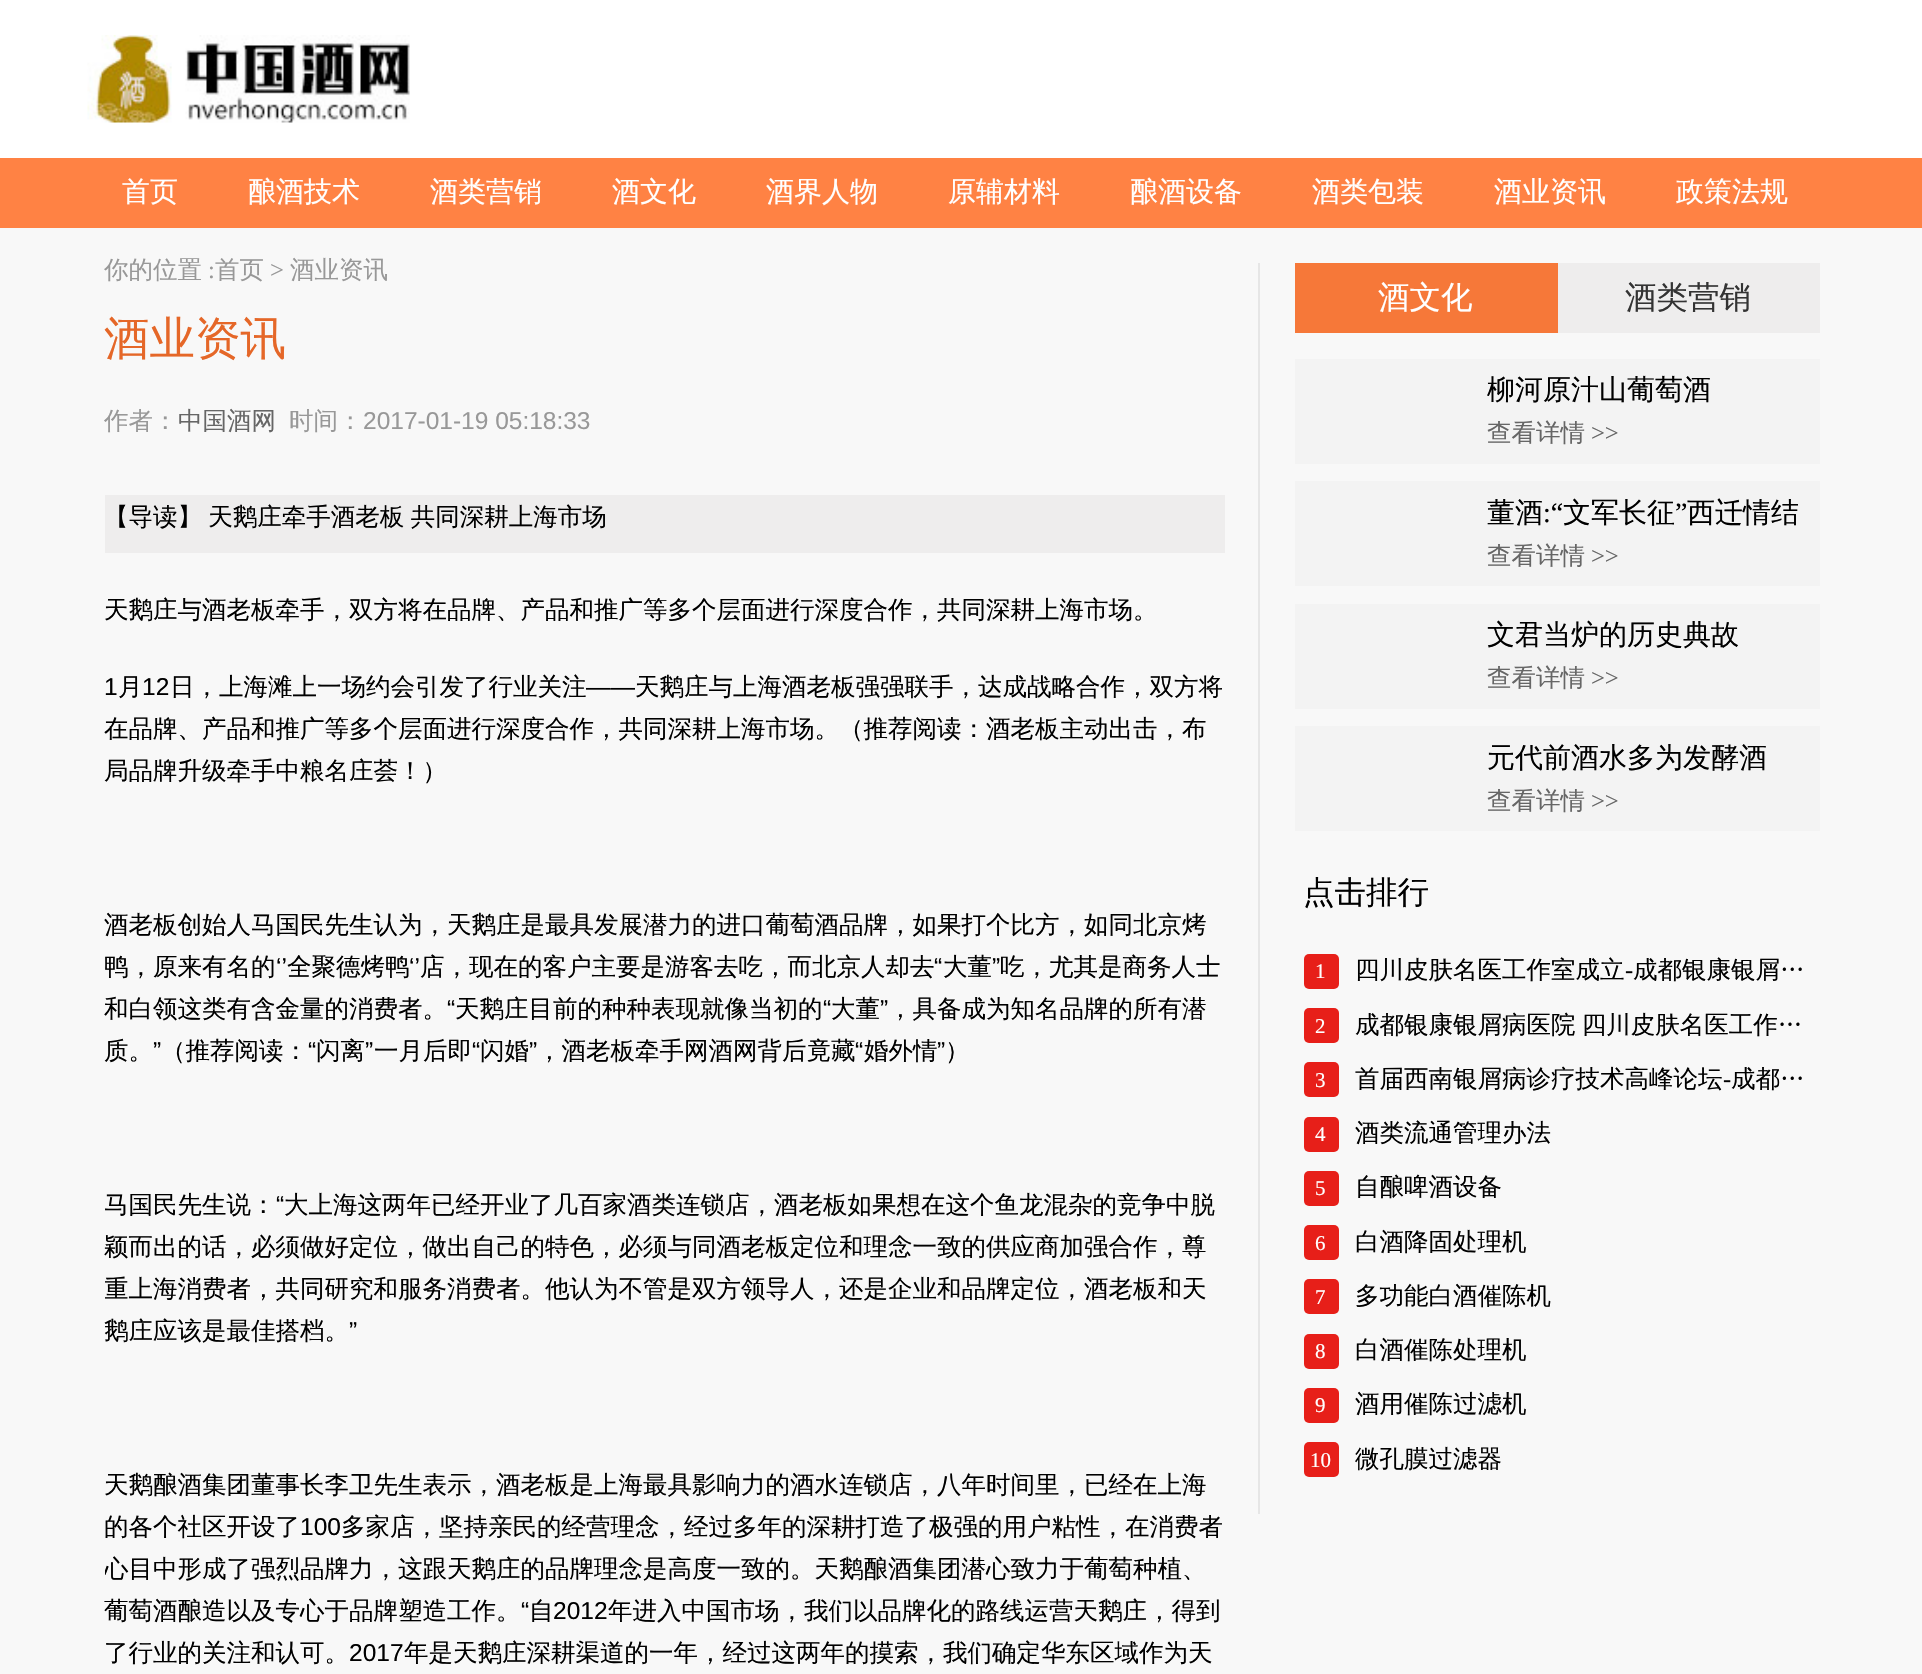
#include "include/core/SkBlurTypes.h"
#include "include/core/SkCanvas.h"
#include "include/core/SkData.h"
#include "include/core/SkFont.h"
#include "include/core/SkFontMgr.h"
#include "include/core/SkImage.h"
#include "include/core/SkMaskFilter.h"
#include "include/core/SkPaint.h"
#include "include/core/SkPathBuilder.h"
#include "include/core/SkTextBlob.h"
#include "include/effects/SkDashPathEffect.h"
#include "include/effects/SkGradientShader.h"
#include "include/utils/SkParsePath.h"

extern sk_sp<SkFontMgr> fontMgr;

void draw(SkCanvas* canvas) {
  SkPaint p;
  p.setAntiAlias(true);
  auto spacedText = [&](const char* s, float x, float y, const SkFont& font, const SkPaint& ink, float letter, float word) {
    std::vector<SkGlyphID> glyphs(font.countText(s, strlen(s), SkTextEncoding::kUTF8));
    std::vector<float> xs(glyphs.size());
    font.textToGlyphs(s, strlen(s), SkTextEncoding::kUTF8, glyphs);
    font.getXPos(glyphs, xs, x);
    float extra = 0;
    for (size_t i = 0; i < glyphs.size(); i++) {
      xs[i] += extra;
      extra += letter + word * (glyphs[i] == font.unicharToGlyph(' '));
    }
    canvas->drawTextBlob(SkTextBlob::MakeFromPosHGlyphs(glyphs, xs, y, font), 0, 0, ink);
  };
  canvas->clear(SkColorSetRGB(248, 248, 248));
  p.setColor(SK_ColorWHITE);
  canvas->drawRect(SkRect::MakeLTRB(0, 0, 1922, 158), p);
  canvas->drawImageRect(SkImages::DeferredFromEncodedData(SkData::MakeFromFileName("images/1.png")), SkRect::MakeLTRB(87, 35, 410, 123), SkSamplingOptions());
  p.setColor(SkColorSetRGB(255, 130, 68));
  canvas->drawRect(SkRect::MakeLTRB(0, 158, 1922, 228), p);
  p.setColor(SkColorSetRGB(238, 237, 237));
  canvas->drawRect(SkRect::MakeLTRB(105, 495, 1225, 553), p);
  p.setColor(SkColorSetRGB(230, 230, 230));
  canvas->drawRect(SkRect::MakeLTRB(1258, 263, 1260, 1514), p);
  p.setColor(SkColorSetRGB(238, 237, 237));
  canvas->drawRect(SkRect::MakeLTRB(1558, 263, 1820, 333), p);
  p.setColor(SkColorSetRGB(246, 120, 57));
  canvas->drawRect(SkRect::MakeLTRB(1295, 263, 1558, 333), p);
  p.setColor(SkColorSetRGB(243, 243, 243));
  canvas->drawRect(SkRect::MakeLTRB(1295, 359, 1820, 464), p);
  canvas->drawRect(SkRect::MakeLTRB(1295, 481, 1820, 586), p);
  canvas->drawRect(SkRect::MakeLTRB(1295, 604, 1820, 709), p);
  canvas->drawRect(SkRect::MakeLTRB(1295, 726, 1820, 831), p);
  p.setColor(SkColorSetRGB(231, 31, 25));
  canvas->drawRoundRect(SkRect::MakeLTRB(1304, 954, 1339, 989), 5, 5, p);
  canvas->drawRoundRect(SkRect::MakeLTRB(1304, 1008, 1339, 1043), 5, 5, p);
  canvas->drawRoundRect(SkRect::MakeLTRB(1304, 1062, 1339, 1097), 5, 5, p);
  canvas->drawRoundRect(SkRect::MakeLTRB(1304, 1117, 1339, 1152), 5, 5, p);
  canvas->drawRoundRect(SkRect::MakeLTRB(1304, 1171, 1339, 1206), 5, 5, p);
  canvas->drawRoundRect(SkRect::MakeLTRB(1304, 1225, 1339, 1260), 5, 5, p);
  canvas->drawRoundRect(SkRect::MakeLTRB(1304, 1279, 1339, 1314), 5, 5, p);
  canvas->drawRoundRect(SkRect::MakeLTRB(1304, 1334, 1339, 1369), 5, 5, p);
  canvas->drawRoundRect(SkRect::MakeLTRB(1304, 1388, 1339, 1423), 5, 5, p);
  canvas->drawRoundRect(SkRect::MakeLTRB(1304, 1442, 1339, 1477), 5, 5, p);
  SkFont font1(fontMgr->matchFamilyStyle("WenQuanYi Zen Hei", SkFontStyle(500, SkFontStyle::kNormal_Width, SkFontStyle::kUpright_Slant)), 28);
  font1.setSubpixel(true);
  p.setColor(SK_ColorWHITE);
  canvas->drawString("首页", 122, 201, font1, p);
  canvas->drawString("酿酒技术", 248, 201, font1, p);
  canvas->drawString("酒类营销", 430, 201, font1, p);
  canvas->drawString("酒文化", 612, 201, font1, p);
  canvas->drawString("酒界人物", 766, 201, font1, p);
  canvas->drawString("原辅材料", 948, 201, font1, p);
  canvas->drawString("酿酒设备", 1130, 201, font1, p);
  canvas->drawString("酒类包装", 1312, 201, font1, p);
  canvas->drawString("酒业资讯", 1494, 201, font1, p);
  canvas->drawString("政策法规", 1676, 201, font1, p);
  SkFont font2(fontMgr->matchFamilyStyle("WenQuanYi Zen Hei", SkFontStyle(500, SkFontStyle::kNormal_Width, SkFontStyle::kUpright_Slant)), 24.5f);
  font2.setSubpixel(true);
  p.setColor(SkColorSetRGB(152, 152, 152));
  canvas->drawString("你的位置", 104, 278, font2, p);
  SkFont font3(fontMgr->matchFamilyStyle("Liberation Serif", SkFontStyle::Normal()), 24.5f);
  font3.setSubpixel(true);
  canvas->drawString(":", 208, 278, font3, p);
  canvas->drawString("首页", 215, 278, font2, p);
  canvas->drawString(">", 270, 278, font3, p);
  canvas->drawString("酒业资讯", 290, 278, font2, p);
  SkFont font4(fontMgr->matchFamilyStyle("WenQuanYi Zen Hei", SkFontStyle(500, SkFontStyle::kNormal_Width, SkFontStyle::kUpright_Slant)), 45.5f);
  font4.setSubpixel(true);
  p.setColor(SkColorSetRGB(229, 103, 40));
  canvas->drawString("酒业资讯", 104, 354, font4, p);
  p.setColor(SkColorSetRGB(152, 152, 152));
  canvas->drawString("作者：", 104, 429, font2, p);
  p.setColor(SkColorSetRGB(102, 102, 102));
  canvas->drawString("中国酒网", 178, 429, font2, p);
  p.setColor(SkColorSetRGB(152, 152, 152));
  canvas->drawString("时间：", 289, 429, font2, p);
  SkFont font5(fontMgr->matchFamilyStyle("Liberation Sans", SkFontStyle::Normal()), 24.5f);
  font5.setSubpixel(true);
  canvas->drawString("2017-01-19 05:18:33", 363, 429, font5, p);
  p.setColor(SK_ColorBLACK);
  spacedText("【导读】 天鹅庄牵手酒老板 共同深耕上海市场", 104, 525, font2, p, 0, -1);
  canvas->drawString("天鹅庄与酒老板牵手，双方将在品牌、产品和推广等多个层面进行深度合作，共同深耕上海市场。", 104, 618, font2, p);
  canvas->drawString("1", 104, 695, font5, p);
  canvas->drawString("月", 118, 695, font2, p);
  canvas->drawString("12", 142, 695, font5, p);
  canvas->drawString("日，上海滩上一场约会引发了行业关注", 170, 695, font2, p);
  canvas->drawString("——", 586, 695, font5, p);
  canvas->drawString("天鹅庄与上海酒老板强强联手，达成战略合作，双方将", 635, 695, font2, p);
  canvas->drawString("在品牌、产品和推广等多个层面进行深度合作，共同深耕上海市场。（推荐阅读：酒老板主动出击，布", 104, 737, font2, p);
  canvas->drawString("局品牌升级牵手中粮名庄荟！）", 104, 779, font2, p);
  canvas->drawString("酒老板创始人马国民先生认为，天鹅庄是最具发展潜力的进口葡萄酒品牌，如果打个比方，如同北京烤", 104, 933, font2, p);
  canvas->drawString("鸭，原来有名的", 104, 975, font2, p);
  canvas->drawString("‘’", 276, 975, font5, p);
  canvas->drawString("全聚德烤鸭", 287, 975, font2, p);
  canvas->drawString("‘’", 409, 975, font5, p);
  canvas->drawString("店，现在的客户主要是游客去吃，而北京人却去", 420, 975, font2, p);
  canvas->drawString("“", 934, 975, font5, p);
  canvas->drawString("大董", 943, 975, font2, p);
  canvas->drawString("”", 992, 975, font5, p);
  canvas->drawString("吃，尤其是商务人士", 1000, 975, font2, p);
  canvas->drawString("和白领这类有含金量的消费者。", 104, 1017, font2, p);
  canvas->drawString("“", 447, 1017, font5, p);
  canvas->drawString("天鹅庄目前的种种表现就像当初的", 455, 1017, font2, p);
  canvas->drawString("“", 823, 1017, font5, p);
  canvas->drawString("大董", 831, 1017, font2, p);
  canvas->drawString("”", 880, 1017, font5, p);
  canvas->drawString("，具备成为知名品牌的所有潜", 888, 1017, font2, p);
  canvas->drawString("质。", 104, 1059, font2, p);
  canvas->drawString("”", 153, 1059, font5, p);
  canvas->drawString("（推荐阅读：", 161, 1059, font2, p);
  canvas->drawString("“", 308, 1059, font5, p);
  canvas->drawString("闪离", 316, 1059, font2, p);
  canvas->drawString("”", 365, 1059, font5, p);
  canvas->drawString("一月后即", 374, 1059, font2, p);
  canvas->drawString("“", 472, 1059, font5, p);
  canvas->drawString("闪婚", 480, 1059, font2, p);
  canvas->drawString("”", 529, 1059, font5, p);
  canvas->drawString("，酒老板牵手网酒网背后竟藏", 537, 1059, font2, p);
  canvas->drawString("“", 855, 1059, font5, p);
  canvas->drawString("婚外情", 864, 1059, font2, p);
  canvas->drawString("”", 937, 1059, font5, p);
  canvas->drawString("）", 945, 1059, font2, p);
  canvas->drawString("马国民先生说：", 104, 1213, font2, p);
  canvas->drawString("“", 276, 1213, font5, p);
  canvas->drawString("大上海这两年已经开业了几百家酒类连锁店，酒老板如果想在这个鱼龙混杂的竞争中脱", 284, 1213, font2, p);
  canvas->drawString("颖而出的话，必须做好定位，做出自己的特色，必须与同酒老板定位和理念一致的供应商加强合作，尊", 104, 1255, font2, p);
  canvas->save();
  canvas->clipRect(SkRect::MakeLTRB(105, 228, 1225, 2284));
  canvas->drawString("重上海消费者，共同研究和服务消费者。他认为不管是双方领导人，还是企业和品牌定位，酒老板和天", 104, 1297, font2, p);
  canvas->restore();
  canvas->drawString("鹅庄应该是最佳搭档。", 104, 1339, font2, p);
  canvas->drawString("”", 349, 1339, font5, p);
  canvas->drawString("天鹅酿酒集团董事长李卫先生表示，酒老板是上海最具影响力的酒水连锁店，八年时间里，已经在上海", 104, 1493, font2, p);
  canvas->drawString("的各个社区开设了", 104, 1535, font2, p);
  canvas->drawString("100", 300, 1535, font5, p);
  canvas->drawString("多家店，坚持亲民的经营理念，经过多年的深耕打造了极强的用户粘性，在消费者", 341, 1535, font2, p);
  canvas->save();
  canvas->clipRect(SkRect::MakeLTRB(105, 228, 1225, 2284));
  canvas->drawString("心目中形成了强烈品牌力，这跟天鹅庄的品牌理念是高度一致的。天鹅酿酒集团潜心致力于葡萄种植、", 104, 1577, font2, p);
  canvas->restore();
  canvas->drawString("葡萄酒酿造以及专心于品牌塑造工作。", 104, 1619, font2, p);
  canvas->drawString("“", 521, 1619, font5, p);
  canvas->drawString("自", 529, 1619, font2, p);
  canvas->drawString("2012", 553, 1619, font5, p);
  canvas->drawString("年进入中国市场，我们以品牌化的路线运营天鹅庄，得到", 608, 1619, font2, p);
  canvas->drawString("了行业的关注和认可。", 104, 1661, font2, p);
  canvas->drawString("2017", 349, 1661, font5, p);
  canvas->drawString("年是天鹅庄深耕渠道的一年，经过这两年的摸索，我们确定华东区域作为天", 404, 1661, font2, p);
  SkFont font6(fontMgr->matchFamilyStyle("WenQuanYi Zen Hei", SkFontStyle(500, SkFontStyle::kNormal_Width, SkFontStyle::kUpright_Slant)), 31.5f);
  font6.setSubpixel(true);
  p.setColor(SK_ColorWHITE);
  canvas->drawString("酒文化", 1378, 308, font6, p);
  p.setColor(SkColorSetRGB(51, 51, 51));
  canvas->drawString("酒类营销", 1625, 308, font6, p);
  p.setColor(SK_ColorBLACK);
  canvas->drawString("柳河原汁山葡萄酒", 1487, 399, font1, p);
  p.setColor(SkColorSetRGB(102, 102, 102));
  canvas->drawString("查看详情", 1487, 441, font2, p);
  canvas->drawString(">>", 1591, 441, font3, p);
  p.setColor(SK_ColorBLACK);
  canvas->drawString("董酒", 1487, 522, font1, p);
  SkFont font7(fontMgr->matchFamilyStyle("Liberation Serif", SkFontStyle::Normal()), 28);
  font7.setSubpixel(true);
  canvas->drawString(":“", 1543, 522, font7, p);
  canvas->drawString("文军长征", 1563, 522, font1, p);
  canvas->drawString("”", 1675, 522, font7, p);
  canvas->drawString("西迁情结", 1687, 522, font1, p);
  p.setColor(SkColorSetRGB(102, 102, 102));
  canvas->drawString("查看详情", 1487, 564, font2, p);
  canvas->drawString(">>", 1591, 564, font3, p);
  p.setColor(SK_ColorBLACK);
  canvas->drawString("文君当炉的历史典故", 1487, 644, font1, p);
  p.setColor(SkColorSetRGB(102, 102, 102));
  canvas->drawString("查看详情", 1487, 686, font2, p);
  canvas->drawString(">>", 1591, 686, font3, p);
  p.setColor(SK_ColorBLACK);
  canvas->drawString("元代前酒水多为发酵酒", 1487, 767, font1, p);
  p.setColor(SkColorSetRGB(102, 102, 102));
  canvas->drawString("查看详情", 1487, 809, font2, p);
  canvas->drawString(">>", 1591, 809, font3, p);
  p.setColor(SK_ColorBLACK);
  canvas->drawString("点击排行", 1303, 903, font6, p);
  SkFont font8(fontMgr->matchFamilyStyle("Liberation Serif", SkFontStyle::Normal()), 21);
  font8.setSubpixel(true);
  p.setColor(SK_ColorWHITE);
  canvas->drawString("1", 1315, 978, font8, p);
  p.setColor(SK_ColorBLACK);
  canvas->drawString("四川皮肤名医工作室成立", 1355, 978, font2, p);
  canvas->drawString("-", 1625, 978, font3, p);
  canvas->drawString("成都银康银屑…", 1633, 978, font2, p);
  p.setColor(SK_ColorWHITE);
  canvas->drawString("2", 1315, 1033, font8, p);
  p.setColor(SK_ColorBLACK);
  spacedText("成都银康银屑病医院 四川皮肤名医工作…", 1355, 1033, font2, p, 0, -1);
  p.setColor(SK_ColorWHITE);
  canvas->drawString("3", 1315, 1087, font8, p);
  p.setColor(SK_ColorBLACK);
  canvas->drawString("首届西南银屑病诊疗技术高峰论坛", 1355, 1087, font2, p);
  canvas->drawString("-", 1723, 1087, font3, p);
  canvas->drawString("成都…", 1731, 1087, font2, p);
  p.setColor(SK_ColorWHITE);
  canvas->drawString("4", 1315, 1141, font8, p);
  p.setColor(SK_ColorBLACK);
  canvas->drawString("酒类流通管理办法", 1355, 1141, font2, p);
  p.setColor(SK_ColorWHITE);
  canvas->drawString("5", 1315, 1195, font8, p);
  p.setColor(SK_ColorBLACK);
  canvas->drawString("自酿啤酒设备", 1355, 1195, font2, p);
  p.setColor(SK_ColorWHITE);
  canvas->drawString("6", 1315, 1250, font8, p);
  p.setColor(SK_ColorBLACK);
  canvas->drawString("白酒降固处理机", 1355, 1250, font2, p);
  p.setColor(SK_ColorWHITE);
  canvas->drawString("7", 1315, 1304, font8, p);
  p.setColor(SK_ColorBLACK);
  canvas->drawString("多功能白酒催陈机", 1355, 1304, font2, p);
  p.setColor(SK_ColorWHITE);
  canvas->drawString("8", 1315, 1358, font8, p);
  p.setColor(SK_ColorBLACK);
  canvas->drawString("白酒催陈处理机", 1355, 1358, font2, p);
  p.setColor(SK_ColorWHITE);
  canvas->drawString("9", 1315, 1412, font8, p);
  p.setColor(SK_ColorBLACK);
  canvas->drawString("酒用催陈过滤机", 1355, 1412, font2, p);
  p.setColor(SK_ColorWHITE);
  canvas->drawString("10", 1310, 1467, font8, p);
  p.setColor(SK_ColorBLACK);
  canvas->drawString("微孔膜过滤器", 1355, 1467, font2, p);
}
